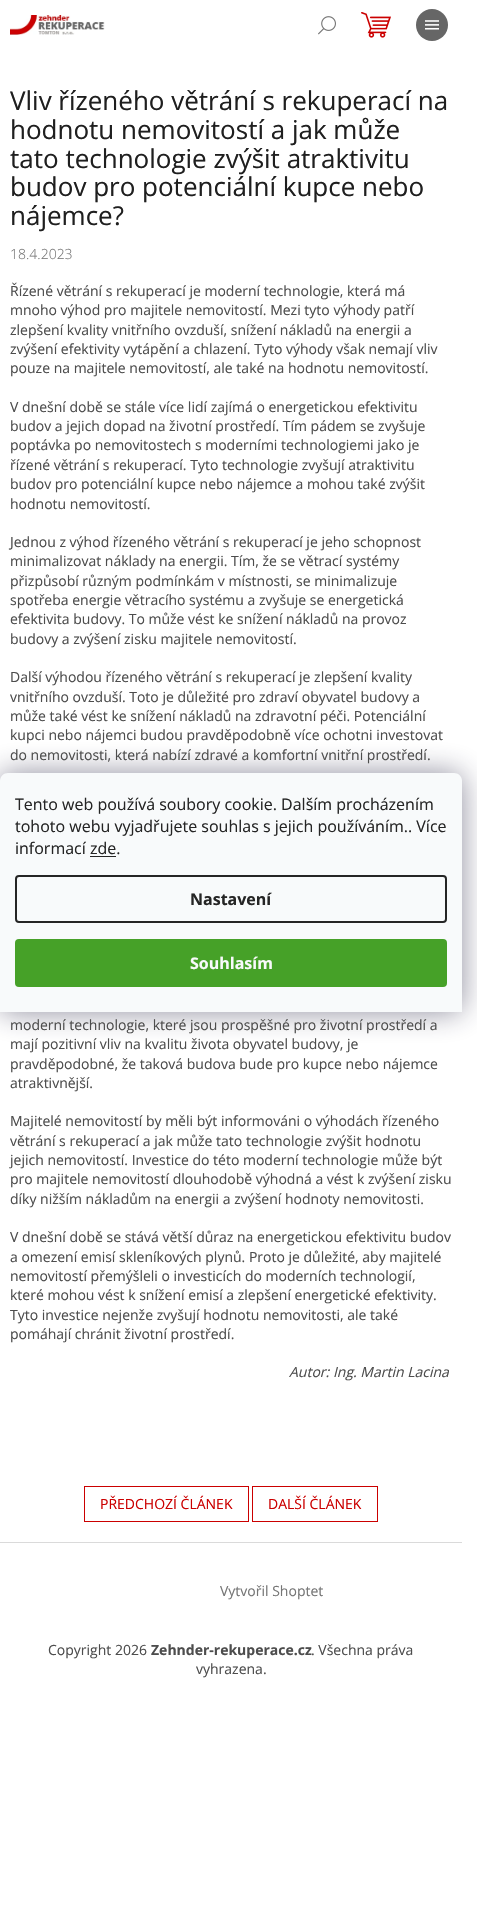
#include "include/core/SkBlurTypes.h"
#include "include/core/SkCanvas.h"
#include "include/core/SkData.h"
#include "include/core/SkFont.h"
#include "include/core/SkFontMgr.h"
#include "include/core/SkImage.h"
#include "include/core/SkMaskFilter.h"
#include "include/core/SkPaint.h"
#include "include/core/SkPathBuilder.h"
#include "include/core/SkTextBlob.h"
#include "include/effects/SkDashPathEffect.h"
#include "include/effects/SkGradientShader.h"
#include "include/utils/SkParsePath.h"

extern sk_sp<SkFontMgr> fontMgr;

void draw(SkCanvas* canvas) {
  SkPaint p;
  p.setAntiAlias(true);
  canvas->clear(SK_ColorWHITE);
  canvas->drawImageRect(SkImages::DeferredFromEncodedData(SkData::MakeFromFileName("images/1.png")), SkRect::MakeLTRB(318, 16, 336, 35), SkSamplingOptions());
  p.setColor(SkColorSetRGB(102, 102, 102));
  canvas->drawCircle(432, 25, 16, p);
  canvas->drawImageRect(SkImages::DeferredFromEncodedData(SkData::MakeFromFileName("images/2.png")), SkRect::MakeLTRB(425, 20, 439, 30), SkSamplingOptions());
  canvas->drawImageRect(SkImages::DeferredFromEncodedData(SkData::MakeFromFileName("images/3.png")), SkRect::MakeLTRB(10, 15, 105, 35), SkSamplingOptions());
  canvas->drawImageRect(SkImages::DeferredFromEncodedData(SkData::MakeFromFileName("images/4.png")), SkRect::MakeLTRB(361, 12, 391, 38), SkSamplingOptions());
  p.setStyle(SkPaint::kStroke_Style);
  p.setStrokeWidth(1);
  p.setColor(SkColorSetRGB(203, 0, 0));
  canvas->drawRect(SkRect::MakeLTRB(84.5f, 1486.5f, 248.5f, 1521.5f), p);
  canvas->drawRect(SkRect::MakeLTRB(252.5f, 1486.5f, 377.5f, 1521.5f), p);
  p.setStyle(SkPaint::kFill_Style);
  p.setColor(SkColorSetRGB(218, 218, 218));
  canvas->drawRect(SkRect::MakeLTRB(0, 1542, 462, 1543), p);
  p.setColor(SkColorSetARGB(128, 27, 25, 57));
  p.setMaskFilter(SkMaskFilter::MakeBlur(kNormal_SkBlurStyle, 15));
  canvas->drawRoundRect(SkRect::MakeLTRB(0, 773, 462, 1012), 8, 8, p);
  p.setMaskFilter(nullptr);
  p.setColor(SkColorSetRGB(248, 250, 251));
  canvas->drawPath(SkPathBuilder().moveTo(8, 773).lineTo(454, 773).cubicTo(458.5f, 773, 462, 776.5f, 462, 781).lineTo(462, 1012).lineTo(0, 1012).lineTo(0, 781).cubicTo(0, 776.5f, 3.5f, 773, 8, 773).close().detach(), p);
  p.setColor(SkColorSetRGB(37, 37, 37));
  canvas->drawRect(SkRect::MakeLTRB(90, 856, 116, 857), p);
  p.setStyle(SkPaint::kStroke_Style);
  p.setStrokeWidth(2);
  canvas->drawRoundRect(SkRect::MakeLTRB(16, 876, 446, 922), 3, 3, p);
  p.setStyle(SkPaint::kFill_Style);
  p.setColor(SkColorSetRGB(70, 161, 40));
  canvas->drawRoundRect(SkRect::MakeLTRB(15, 939, 447, 987), 4, 4, p);
  SkFont font1(fontMgr->matchFamilyStyle("Open Sans", SkFontStyle::Normal()), 26);
  font1.setSubpixel(true);
  p.setColor(SkColorSetRGB(31, 31, 31));
  canvas->drawString("Vliv řízeného větrání s rekuperací na", 10, 110, font1, p);
  canvas->drawString("hodnotu nemovitostí a jak může", 10, 139, font1, p);
  canvas->drawString("tato technologie zvýšit atraktivitu", 10, 168, font1, p);
  canvas->drawString("budov pro potenciální kupce nebo", 10, 196, font1, p);
  canvas->drawString("nájemce?", 10, 225, font1, p);
  SkFont font2(fontMgr->matchFamilyStyle("Open Sans", SkFontStyle(300, SkFontStyle::kNormal_Width, SkFontStyle::kUpright_Slant)), 14);
  font2.setSubpixel(true);
  p.setColor(SkColorSetRGB(118, 118, 118));
  canvas->drawString("18.4.2023", 10, 259, font2, p);
  SkFont font3(fontMgr->matchFamilyStyle("Open Sans", SkFontStyle::Normal()), 14);
  font3.setSubpixel(true);
  p.setColor(SkColorSetRGB(77, 77, 77));
  canvas->drawString("Řízené větrání s rekuperací je moderní technologie, která má", 10, 296, font3, p);
  canvas->drawString("mnoho výhod pro majitele nemovitostí. Mezi tyto výhody patří", 10, 315, font3, p);
  canvas->drawString("zlepšení kvality vnitřního ovzduší, snížení nákladů na energii a", 10, 335, font3, p);
  canvas->drawString("zvýšení efektivity vytápění a chlazení. Tyto výhody však nemají vliv", 10, 354, font3, p);
  canvas->drawString("pouze na majitele nemovitostí, ale také na hodnotu nemovitostí.", 10, 373, font3, p);
  canvas->drawString("V dnešní době se stále více lidí zajímá o energetickou efektivitu", 10, 412, font3, p);
  canvas->drawString("budov a jejich dopad na životní prostředí. Tím pádem se zvyšuje", 10, 431, font3, p);
  canvas->drawString("poptávka po nemovitostech s moderními technologiemi jako je", 10, 450, font3, p);
  canvas->drawString("řízené větrání s rekuperací. Tyto technologie zvyšují atraktivitu", 10, 470, font3, p);
  canvas->drawString("budov pro potenciální kupce nebo nájemce a mohou také zvýšit", 10, 489, font3, p);
  canvas->drawString("hodnotu nemovitostí.", 10, 509, font3, p);
  canvas->drawString("Jednou z výhod řízeného větrání s rekuperací je jeho schopnost", 10, 547, font3, p);
  canvas->drawString("minimalizovat náklady na energii. Tím, že se větrací systémy", 10, 566, font3, p);
  canvas->drawString("přizpůsobí různým podmínkám v místnosti, se minimalizuje", 10, 586, font3, p);
  canvas->drawString("spotřeba energie větracího systému a zvyšuje se energetická", 10, 605, font3, p);
  canvas->drawString("efektivita budovy. To může vést ke snížení nákladů na provoz", 10, 624, font3, p);
  canvas->drawString("budovy a zvýšení zisku majitele nemovitostí.", 10, 644, font3, p);
  canvas->drawString("Další výhodou řízeného větrání s rekuperací je zlepšení kvality", 10, 682, font3, p);
  canvas->drawString("vnitřního ovzduší. Toto je důležité pro zdraví obyvatel budovy a", 10, 702, font3, p);
  canvas->drawString("může také vést ke snížení nákladů na zdravotní péči. Potenciální", 10, 721, font3, p);
  canvas->drawString("kupci nebo nájemci budou pravděpodobně více ochotni investovat", 10, 740, font3, p);
  canvas->drawString("do nemovitosti, která nabízí zdravé a komfortní vnitřní prostředí.", 10, 760, font3, p);
  canvas->drawString("moderní technologie, které jsou prospěšné pro životní prostředí a", 10, 1030, font3, p);
  canvas->drawString("mají pozitivní vliv na kvalitu života obyvatel budovy, je", 10, 1049, font3, p);
  canvas->drawString("pravděpodobné, že taková budova bude pro kupce nebo nájemce", 10, 1069, font3, p);
  canvas->drawString("atraktivnější.", 10, 1088, font3, p);
  canvas->drawString("Majitelé nemovitostí by měli být informováni o výhodách řízeného", 10, 1126, font3, p);
  canvas->drawString("větrání s rekuperací a jak může tato technologie zvýšit hodnotu", 10, 1146, font3, p);
  canvas->drawString("jejich nemovitostí. Investice do této moderní technologie může být", 10, 1165, font3, p);
  canvas->drawString("pro majitele nemovitostí dlouhodobě výhodná a vést k zvýšení zisku", 10, 1184, font3, p);
  canvas->drawString("díky nižším nákladům na energii a zvýšení hodnoty nemovitosti.", 10, 1204, font3, p);
  canvas->drawString("V dnešní době se stává větší důraz na energetickou efektivitu budov", 10, 1242, font3, p);
  canvas->drawString("a omezení emisí skleníkových plynů. Proto je důležité, aby majitelé", 10, 1262, font3, p);
  canvas->drawString("nemovitostí přemýšleli o investicích do moderních technologií,", 10, 1281, font3, p);
  canvas->drawString("které mohou vést k snížení emisí a zlepšení energetické efektivity.", 10, 1300, font3, p);
  canvas->drawString("Tyto investice nejenže zvyšují hodnotu nemovitosti, ale také", 10, 1320, font3, p);
  canvas->drawString("pomáhají chránit životní prostředí.", 10, 1339, font3, p);
  SkFont font4(fontMgr->matchFamilyStyle("Open Sans", SkFontStyle::Italic()), 14);
  font4.setSubpixel(true);
  canvas->drawString("Autor: Ing. Martin Lacina", 289, 1377, font4, p);
  p.setColor(SkColorSetRGB(203, 0, 0));
  canvas->drawString("PŘEDCHOZÍ ČLÁNEK", 100, 1509, font3, p);
  canvas->drawString("DALŠÍ ČLÁNEK", 268, 1509, font3, p);
  p.setColor(SkColorSetRGB(118, 118, 118));
  canvas->drawString("Vytvořil Shoptet", 220, 1596, font3, p);
  p.setColor(SkColorSetRGB(77, 77, 77));
  canvas->drawString("Copyright 2026", 48, 1655, font3, p);
  SkFont font5(fontMgr->matchFamilyStyle("Open Sans", SkFontStyle::Bold()), 14);
  font5.setSubpixel(true);
  canvas->drawString("Zehnder-rekuperace.cz", 151, 1655, font5, p);
  canvas->drawString(". Všechna práva", 311, 1655, font3, p);
  canvas->drawString("vyhrazena.", 196, 1674, font3, p);
  SkFont font6(fontMgr->matchFamilyStyle("Open Sans", SkFontStyle::Normal()), 16);
  font6.setSubpixel(true);
  p.setColor(SkColorSetRGB(37, 37, 37));
  canvas->drawString("Tento web používá soubory cookie. Dalším procházením", 15, 810, font6, p);
  canvas->drawString("tohoto webu vyjadřujete souhlas s jejich používáním.. Více", 15, 832, font6, p);
  canvas->drawString("informací zde.", 15, 854, font6, p);
  SkFont font7(fontMgr->matchFamilyStyle("Open Sans", SkFontStyle::Bold()), 16);
  font7.setSubpixel(true);
  canvas->drawString("Nastavení", 190, 905, font7, p);
  p.setColor(SkColorSetRGB(248, 250, 251));
  canvas->drawString("Souhlasím", 190, 969, font7, p);
}
